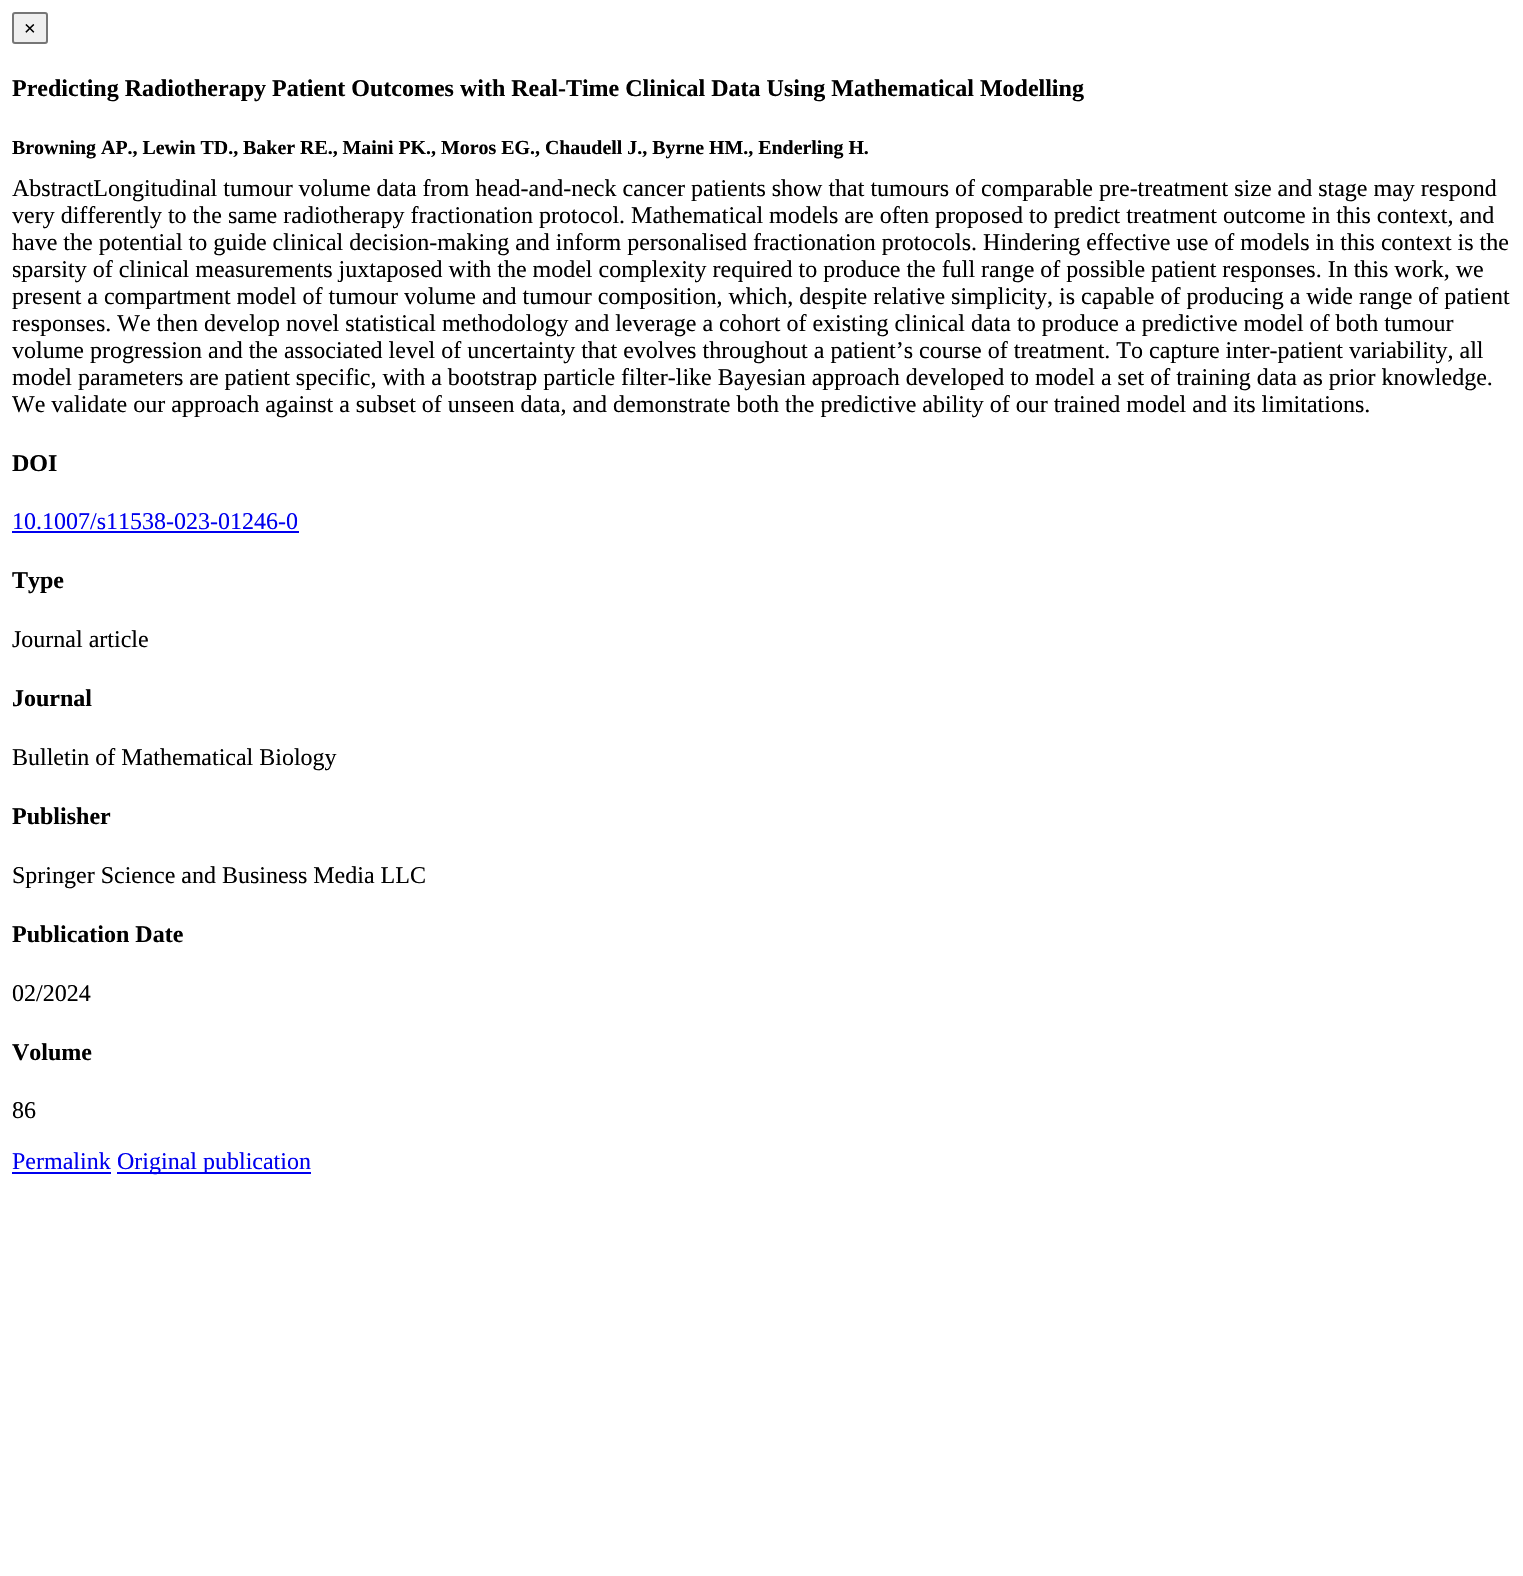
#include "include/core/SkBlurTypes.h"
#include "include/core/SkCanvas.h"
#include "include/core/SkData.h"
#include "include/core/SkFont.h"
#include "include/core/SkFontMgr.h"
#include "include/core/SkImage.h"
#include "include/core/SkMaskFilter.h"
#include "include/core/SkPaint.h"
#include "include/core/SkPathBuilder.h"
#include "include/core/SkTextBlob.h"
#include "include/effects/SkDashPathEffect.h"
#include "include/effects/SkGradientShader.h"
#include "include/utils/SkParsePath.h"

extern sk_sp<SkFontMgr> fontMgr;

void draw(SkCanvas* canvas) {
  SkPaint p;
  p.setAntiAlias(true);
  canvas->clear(SK_ColorWHITE);
  p.setColor(SkColorSetRGB(239, 239, 239));
  canvas->drawRoundRect(SkRect::MakeLTRB(13, 13, 47, 43), 2, 2, p);
  p.setStyle(SkPaint::kStroke_Style);
  p.setStrokeWidth(2);
  p.setColor(SkColorSetRGB(118, 118, 118));
  canvas->drawRoundRect(SkRect::MakeLTRB(13, 13, 47, 43), 2, 2, p);
  p.setStyle(SkPaint::kFill_Style);
  p.setColor(SkColorSetRGB(0, 0, 238));
  canvas->drawRect(SkRect::MakeLTRB(12, 531, 299, 533), p);
  canvas->drawRect(SkRect::MakeLTRB(12, 1172, 111, 1174), p);
  canvas->drawRect(SkRect::MakeLTRB(117, 1172, 311, 1174), p);
  SkFont font1(fontMgr->matchFamilyStyle("Liberation Sans", SkFontStyle::Normal()), 20);
  font1.setSubpixel(true);
  p.setColor(SK_ColorBLACK);
  canvas->drawString("×", 24, 35, font1, p);
  SkFont font2(fontMgr->matchFamilyStyle("Liberation Serif", SkFontStyle::Bold()), 24);
  font2.setSubpixel(true);
  canvas->drawString("Predicting Radiotherapy Patient Outcomes with Real-Time Clinical Data Using Mathematical Modelling", 12, 96, font2, p);
  SkFont font3(fontMgr->matchFamilyStyle("Liberation Serif", SkFontStyle::Bold()), 19.9f);
  font3.setSubpixel(true);
  canvas->drawString("Browning AP., Lewin TD., Baker RE., Maini PK., Moros EG., Chaudell J., Byrne HM., Enderling H.", 12, 154, font3, p);
  SkFont font4(fontMgr->matchFamilyStyle("Liberation Serif", SkFontStyle::Normal()), 24);
  font4.setSubpixel(true);
  canvas->drawString("AbstractLongitudinal tumour volume data from head-and-neck cancer patients show that tumours of comparable pre-treatment size and stage may respond", 12, 196, font4, p);
  canvas->drawString("very differently to the same radiotherapy fractionation protocol. Mathematical models are often proposed to predict treatment outcome in this context, and", 12, 223, font4, p);
  canvas->drawString("have the potential to guide clinical decision-making and inform personalised fractionation protocols. Hindering effective use of models in this context is the", 12, 250, font4, p);
  canvas->drawString("sparsity of clinical measurements juxtaposed with the model complexity required to produce the full range of possible patient responses. In this work, we", 12, 277, font4, p);
  canvas->drawString("present a compartment model of tumour volume and tumour composition, which, despite relative simplicity, is capable of producing a wide range of patient", 12, 304, font4, p);
  canvas->drawString("responses. We then develop novel statistical methodology and leverage a cohort of existing clinical data to produce a predictive model of both tumour", 12, 331, font4, p);
  canvas->drawString("volume progression and the associated level of uncertainty that evolves throughout a patient’s course of treatment. To capture inter-patient variability, all", 12, 358, font4, p);
  canvas->drawString("model parameters are patient specific, with a bootstrap particle filter-like Bayesian approach developed to model a set of training data as prior knowledge.", 12, 385, font4, p);
  canvas->drawString("We validate our approach against a subset of unseen data, and demonstrate both the predictive ability of our trained model and its limitations.", 12, 412, font4, p);
  canvas->drawString("DOI", 12, 471, font2, p);
  p.setColor(SkColorSetRGB(0, 0, 238));
  canvas->drawString("10.1007/s11538-023-01246-0", 12, 529, font4, p);
  p.setColor(SK_ColorBLACK);
  canvas->drawString("Type", 12, 588, font2, p);
  canvas->drawString("Journal article", 12, 647, font4, p);
  canvas->drawString("Journal", 12, 706, font2, p);
  canvas->drawString("Bulletin of Mathematical Biology", 12, 765, font4, p);
  canvas->drawString("Publisher", 12, 824, font2, p);
  canvas->drawString("Springer Science and Business Media LLC", 12, 883, font4, p);
  canvas->drawString("Publication Date", 12, 942, font2, p);
  canvas->drawString("02/2024", 12, 1001, font4, p);
  canvas->drawString("Volume", 12, 1060, font2, p);
  canvas->drawString("86", 12, 1118, font4, p);
  p.setColor(SkColorSetRGB(0, 0, 238));
  canvas->drawString("Permalink", 12, 1169, font4, p);
  canvas->drawString("Original publication", 117, 1169, font4, p);
}
